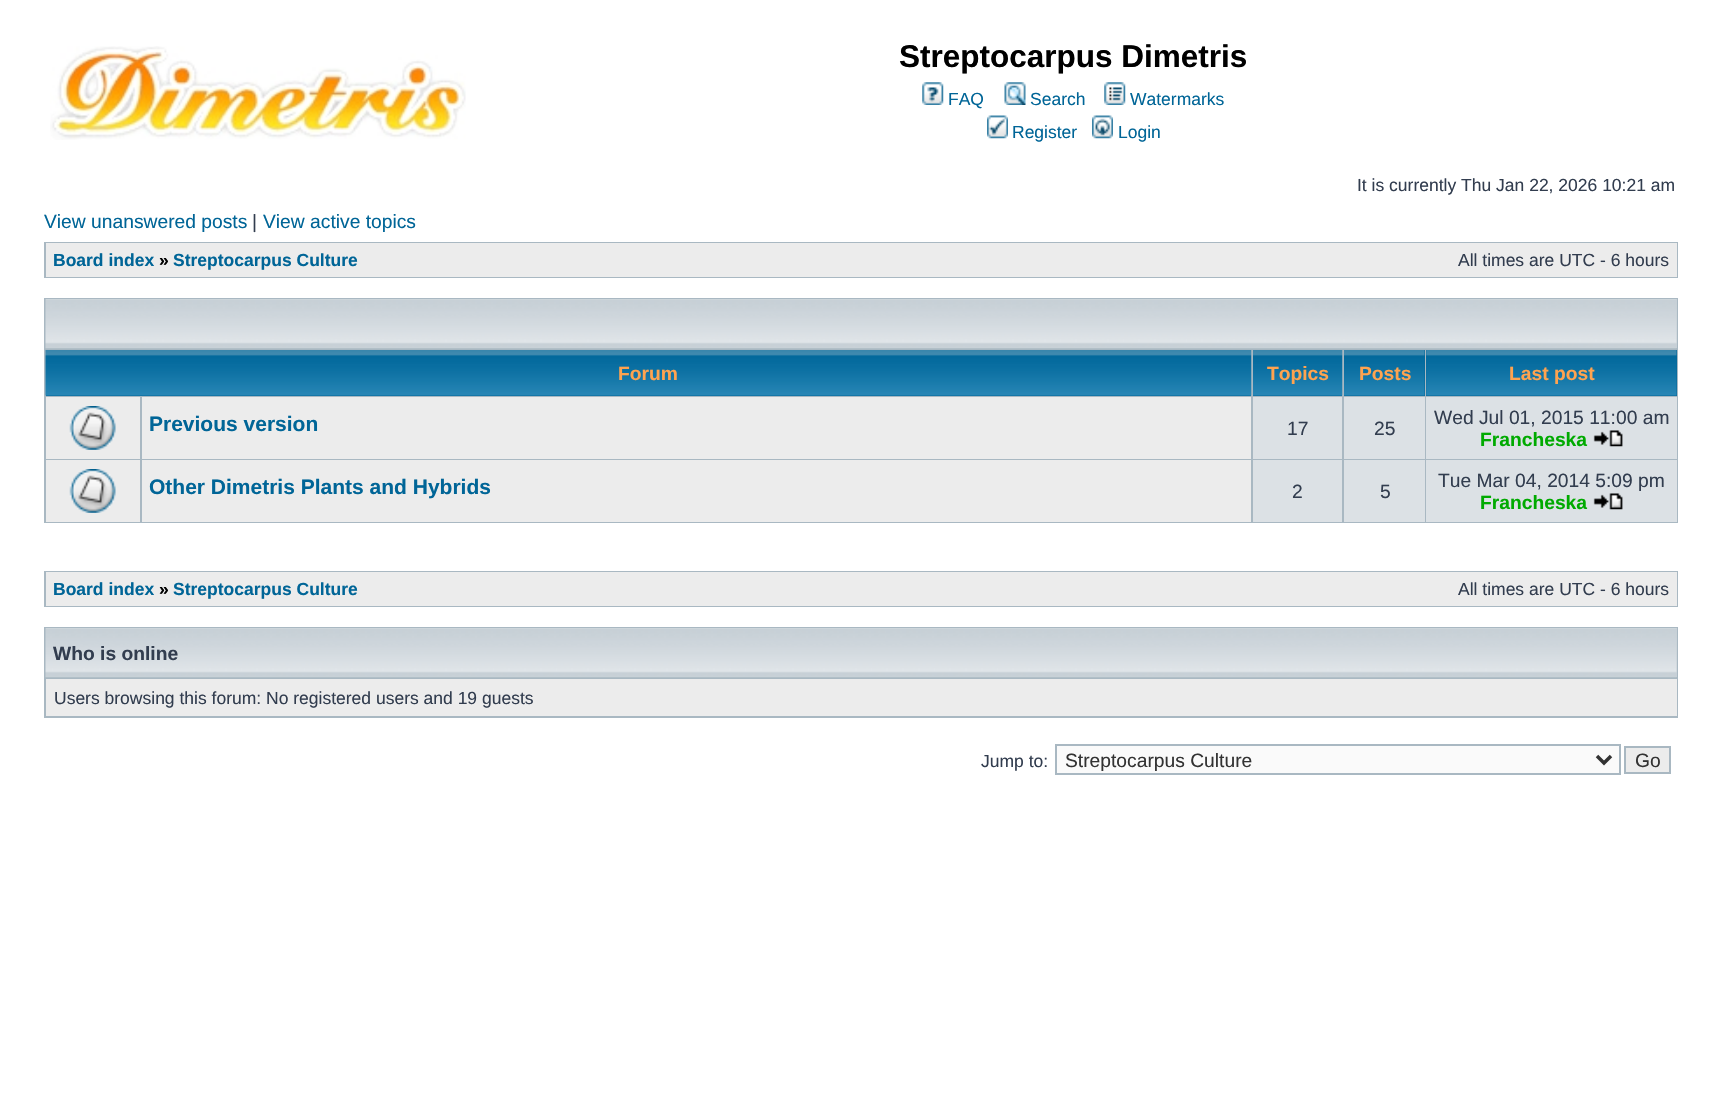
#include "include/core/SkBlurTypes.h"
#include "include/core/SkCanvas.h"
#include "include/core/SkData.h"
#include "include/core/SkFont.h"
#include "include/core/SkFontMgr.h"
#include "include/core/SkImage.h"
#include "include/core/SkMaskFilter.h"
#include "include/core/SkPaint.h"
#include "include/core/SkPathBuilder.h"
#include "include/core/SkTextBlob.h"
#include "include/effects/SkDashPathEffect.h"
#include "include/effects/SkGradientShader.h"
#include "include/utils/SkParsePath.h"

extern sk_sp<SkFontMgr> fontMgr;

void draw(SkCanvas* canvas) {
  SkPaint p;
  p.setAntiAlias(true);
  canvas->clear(SK_ColorWHITE);
  canvas->drawImageRect(SkImages::DeferredFromEncodedData(SkData::MakeFromFileName("images/1.png")), SkRect::MakeLTRB(50, 46, 466, 140), SkSamplingOptions());
  canvas->drawImageRect(SkImages::DeferredFromEncodedData(SkData::MakeFromFileName("images/2.png")), SkRect::MakeLTRB(922, 82, 944, 105), SkSamplingOptions());
  canvas->drawImageRect(SkImages::DeferredFromEncodedData(SkData::MakeFromFileName("images/3.png")), SkRect::MakeLTRB(1004, 82, 1026, 105), SkSamplingOptions());
  canvas->drawImageRect(SkImages::DeferredFromEncodedData(SkData::MakeFromFileName("images/4.png")), SkRect::MakeLTRB(1104, 82, 1126, 105), SkSamplingOptions());
  canvas->drawImageRect(SkImages::DeferredFromEncodedData(SkData::MakeFromFileName("images/5.png")), SkRect::MakeLTRB(987, 115, 1008, 139), SkSamplingOptions());
  canvas->drawImageRect(SkImages::DeferredFromEncodedData(SkData::MakeFromFileName("images/6.png")), SkRect::MakeLTRB(1092, 115, 1113, 139), SkSamplingOptions());
  p.setColor(SkColorSetRGB(169, 184, 194));
  canvas->drawRect(SkRect::MakeLTRB(44, 242, 1678, 278), p);
  p.setColor(SkColorSetRGB(236, 236, 236));
  canvas->drawRect(SkRect::MakeLTRB(46, 243, 1677, 277), p);
  p.setColor(SkColorSetRGB(169, 184, 194));
  canvas->drawRect(SkRect::MakeLTRB(44, 298, 1678, 523), p);
  p.setColor(SkColorSetRGB(199, 208, 215));
  canvas->drawRect(SkRect::MakeLTRB(46, 299, 1677, 348), p);
  canvas->drawImageRect(SkImages::DeferredFromEncodedData(SkData::MakeFromFileName("images/7.png")), SkRect::MakeLTRB(45, 299, 1677, 349), SkSamplingOptions());
  p.setColor(SkColorSetRGB(0, 102, 153));
  canvas->drawRect(SkRect::MakeLTRB(46, 395, 1251, 396), p);
  canvas->drawImageRect(SkImages::DeferredFromEncodedData(SkData::MakeFromFileName("images/8.png")), SkRect::MakeLTRB(45, 350, 1252, 396), SkSamplingOptions());
  canvas->drawRect(SkRect::MakeLTRB(1253, 395, 1342, 396), p);
  canvas->drawImageRect(SkImages::DeferredFromEncodedData(SkData::MakeFromFileName("images/9.png")), SkRect::MakeLTRB(1253, 350, 1343, 396), SkSamplingOptions());
  canvas->drawRect(SkRect::MakeLTRB(1344, 350, 1425, 396), p);
  canvas->drawImageRect(SkImages::DeferredFromEncodedData(SkData::MakeFromFileName("images/10.png")), SkRect::MakeLTRB(1344, 350, 1425, 396), SkSamplingOptions());
  canvas->drawRect(SkRect::MakeLTRB(1426, 350, 1677, 396), p);
  canvas->drawImageRect(SkImages::DeferredFromEncodedData(SkData::MakeFromFileName("images/11.png")), SkRect::MakeLTRB(1426, 350, 1677, 396), SkSamplingOptions());
  p.setColor(SkColorSetRGB(236, 236, 236));
  canvas->drawRect(SkRect::MakeLTRB(46, 397, 140, 459), p);
  canvas->drawImageRect(SkImages::DeferredFromEncodedData(SkData::MakeFromFileName("images/12.png")), SkRect::MakeLTRB(69, 406, 116, 450), SkSamplingOptions());
  canvas->drawRect(SkRect::MakeLTRB(142, 397, 1251, 459), p);
  p.setColor(SkColorSetRGB(220, 225, 229));
  canvas->drawRect(SkRect::MakeLTRB(1253, 397, 1342, 459), p);
  canvas->drawRect(SkRect::MakeLTRB(1344, 397, 1425, 459), p);
  canvas->drawRect(SkRect::MakeLTRB(1426, 397, 1677, 459), p);
  canvas->drawImageRect(SkImages::DeferredFromEncodedData(SkData::MakeFromFileName("images/13.png")), SkRect::MakeLTRB(1593, 430, 1623, 447), SkSamplingOptions());
  p.setColor(SkColorSetRGB(236, 236, 236));
  canvas->drawRect(SkRect::MakeLTRB(46, 460, 140, 522), p);
  canvas->drawImageRect(SkImages::DeferredFromEncodedData(SkData::MakeFromFileName("images/12.png")), SkRect::MakeLTRB(69, 469, 116, 513), SkSamplingOptions());
  canvas->drawRect(SkRect::MakeLTRB(142, 460, 1251, 522), p);
  p.setColor(SkColorSetRGB(220, 225, 229));
  canvas->drawRect(SkRect::MakeLTRB(1253, 460, 1342, 522), p);
  canvas->drawRect(SkRect::MakeLTRB(1344, 460, 1425, 522), p);
  canvas->drawRect(SkRect::MakeLTRB(1426, 460, 1677, 522), p);
  canvas->drawImageRect(SkImages::DeferredFromEncodedData(SkData::MakeFromFileName("images/13.png")), SkRect::MakeLTRB(1593, 493, 1623, 510), SkSamplingOptions());
  p.setColor(SkColorSetRGB(169, 184, 194));
  canvas->drawRect(SkRect::MakeLTRB(44, 571, 1678, 607), p);
  p.setColor(SkColorSetRGB(236, 236, 236));
  canvas->drawRect(SkRect::MakeLTRB(46, 572, 1677, 606), p);
  p.setColor(SkColorSetRGB(169, 184, 194));
  canvas->drawRect(SkRect::MakeLTRB(44, 627, 1678, 718), p);
  p.setColor(SkColorSetRGB(199, 208, 215));
  canvas->drawRect(SkRect::MakeLTRB(46, 628, 1677, 677), p);
  canvas->drawImageRect(SkImages::DeferredFromEncodedData(SkData::MakeFromFileName("images/7.png")), SkRect::MakeLTRB(45, 628, 1677, 678), SkSamplingOptions());
  p.setColor(SkColorSetRGB(236, 236, 236));
  canvas->drawRect(SkRect::MakeLTRB(46, 679, 1677, 716), p);
  p.setColor(SkColorSetRGB(250, 250, 250));
  canvas->drawRect(SkRect::MakeLTRB(1056, 745, 1620, 774), p);
  p.setStyle(SkPaint::kStroke_Style);
  p.setStrokeWidth(2);
  p.setColor(SkColorSetRGB(169, 184, 194));
  canvas->drawRect(SkRect::MakeLTRB(1056, 745, 1620, 774), p);
  p.setStrokeWidth(3.5f);
  p.setColor(SkColorSetRGB(51, 51, 51));
  canvas->drawPath(SkPathBuilder().moveTo(1597, 756).lineTo(1604, 763).lineTo(1611, 756).detach(), p);
  p.setStyle(SkPaint::kFill_Style);
  p.setColor(SkColorSetRGB(236, 236, 236));
  canvas->drawRect(SkRect::MakeLTRB(1625, 747, 1670, 773), p);
  p.setStyle(SkPaint::kStroke_Style);
  p.setStrokeWidth(2);
  p.setColor(SkColorSetRGB(169, 184, 194));
  canvas->drawRect(SkRect::MakeLTRB(1625, 747, 1670, 773), p);
  SkFont font1(fontMgr->matchFamilyStyle("Liberation Sans", SkFontStyle::Bold()), 31.5f);
  font1.setSubpixel(true);
  p.setStyle(SkPaint::kFill_Style);
  p.setColor(SK_ColorBLACK);
  canvas->drawString("Streptocarpus Dimetris", 899, 67, font1, p);
  SkFont font2(fontMgr->matchFamilyStyle("Liberation Sans", SkFontStyle::Normal()), 17.5f);
  font2.setSubpixel(true);
  p.setColor(SkColorSetRGB(0, 101, 151));
  canvas->drawString("FAQ", 948, 105, font2, p);
  canvas->drawString("Search", 1030, 105, font2, p);
  canvas->drawString("Watermarks", 1130, 105, font2, p);
  canvas->drawString("Register", 1012, 138, font2, p);
  canvas->drawString("Login", 1118, 138, font2, p);
  p.setColor(SkColorSetRGB(50, 61, 79));
  canvas->drawString("It is currently Thu Jan 22, 2026 10:21 am", 1357, 191, font2, p);
  SkFont font3(fontMgr->matchFamilyStyle("Liberation Sans", SkFontStyle::Normal()), 19.25f);
  font3.setSubpixel(true);
  p.setColor(SkColorSetRGB(0, 101, 151));
  canvas->drawString("View unanswered posts", 44, 228, font3, p);
  p.setColor(SkColorSetRGB(50, 61, 79));
  canvas->drawString("|", 252, 228, font3, p);
  p.setColor(SkColorSetRGB(0, 101, 151));
  canvas->drawString("View active topics", 263, 228, font3, p);
  SkFont font4(fontMgr->matchFamilyStyle("Liberation Sans", SkFontStyle::Bold()), 17.5f);
  font4.setSubpixel(true);
  canvas->drawString("Board index", 53, 266, font4, p);
  p.setColor(SK_ColorBLACK);
  canvas->drawString("»", 159, 266, font4, p);
  p.setColor(SkColorSetRGB(0, 101, 151));
  canvas->drawString("Streptocarpus Culture", 173, 266, font4, p);
  p.setColor(SkColorSetRGB(50, 61, 79));
  canvas->drawString("All times are UTC - 6 hours", 1458, 266, font2, p);
  SkFont font5(fontMgr->matchFamilyStyle("Liberation Sans", SkFontStyle::Bold()), 19.25f);
  font5.setSubpixel(true);
  p.setColor(SkColorSetRGB(255, 163, 79));
  canvas->drawString("Forum", 618, 380, font5, p);
  canvas->drawString("Topics", 1267, 380, font5, p);
  canvas->drawString("Posts", 1359, 380, font5, p);
  canvas->drawString("Last post", 1509, 380, font5, p);
  SkFont font6(fontMgr->matchFamilyStyle("Liberation Sans", SkFontStyle::Bold()), 21);
  font6.setSubpixel(true);
  p.setColor(SkColorSetRGB(0, 101, 151));
  canvas->drawString("Previous version", 149, 431, font6, p);
  p.setColor(SkColorSetRGB(50, 61, 79));
  canvas->drawString("17", 1287, 435, font3, p);
  canvas->drawString("25", 1374, 435, font3, p);
  canvas->drawString("Wed Jul 01, 2015 11:00 am", 1434, 424, font3, p);
  p.setColor(SkColorSetRGB(0, 170, 0));
  canvas->drawString("Francheska", 1480, 446, font5, p);
  p.setColor(SkColorSetRGB(0, 101, 151));
  canvas->drawString("Other Dimetris Plants and Hybrids", 149, 494, font6, p);
  p.setColor(SkColorSetRGB(50, 61, 79));
  canvas->drawString("2", 1292, 498, font3, p);
  canvas->drawString("5", 1380, 498, font3, p);
  canvas->drawString("Tue Mar 04, 2014 5:09 pm", 1438, 487, font3, p);
  p.setColor(SkColorSetRGB(0, 170, 0));
  canvas->drawString("Francheska", 1480, 509, font5, p);
  p.setColor(SkColorSetRGB(0, 101, 151));
  canvas->drawString("Board index", 53, 595, font4, p);
  p.setColor(SK_ColorBLACK);
  canvas->drawString("»", 159, 595, font4, p);
  p.setColor(SkColorSetRGB(0, 101, 151));
  canvas->drawString("Streptocarpus Culture", 173, 595, font4, p);
  p.setColor(SkColorSetRGB(50, 61, 79));
  canvas->drawString("All times are UTC - 6 hours", 1458, 595, font2, p);
  canvas->drawString("Who is online", 53, 660, font5, p);
  canvas->drawString("Users browsing this forum: No registered users and 19 guests", 54, 704, font2, p);
  canvas->drawString("Jump to:", 981, 767, font2, p);
  p.setColor(SkColorSetRGB(51, 51, 51));
  canvas->drawString("Streptocarpus Culture", 1065, 767, font3, p);
  canvas->drawString("Go", 1635, 767, font3, p);
}
